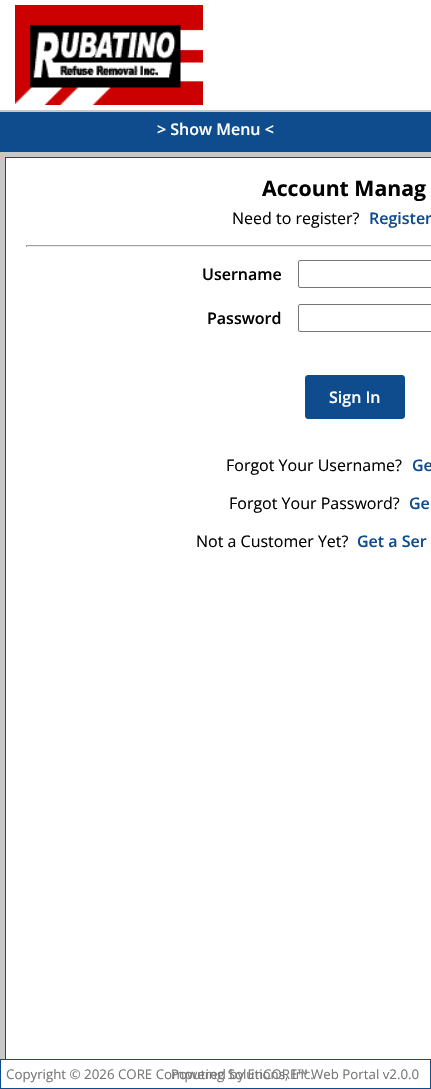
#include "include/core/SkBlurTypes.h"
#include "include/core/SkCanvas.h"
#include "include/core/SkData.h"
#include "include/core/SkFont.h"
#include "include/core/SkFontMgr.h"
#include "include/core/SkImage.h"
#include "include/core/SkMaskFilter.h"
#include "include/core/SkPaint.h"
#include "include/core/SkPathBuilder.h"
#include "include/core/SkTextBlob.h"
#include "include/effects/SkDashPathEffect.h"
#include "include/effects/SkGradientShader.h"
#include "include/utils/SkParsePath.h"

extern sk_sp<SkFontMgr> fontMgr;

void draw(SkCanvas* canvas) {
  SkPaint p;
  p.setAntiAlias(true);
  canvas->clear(SkColorSetRGB(200, 200, 200));
  p.setColor(SK_ColorWHITE);
  canvas->drawRect(SkRect::MakeLTRB(0, 0, 431, 110), p);
  canvas->drawImageRect(SkImages::DeferredFromEncodedData(SkData::MakeFromFileName("images/1.png")), SkRect::MakeLTRB(15, 5, 203, 105), SkSamplingOptions());
  p.setColor(SkColorSetRGB(15, 76, 142));
  canvas->drawRect(SkRect::MakeLTRB(0, 112, 431, 152), p);
  p.setColor(SK_ColorWHITE);
  canvas->drawRect(SkRect::MakeLTRB(6, 158, 431, 1059), p);
  p.setStyle(SkPaint::kStroke_Style);
  p.setStrokeWidth(1);
  p.setColor(SkColorSetRGB(15, 76, 142));
  canvas->drawRect(SkRect::MakeLTRB(5.5f, 157.5f, 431.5f, 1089.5f), p);
  p.setStyle(SkPaint::kFill_Style);
  p.setColor(SkColorSetRGB(159, 159, 159));
  canvas->drawRect(SkRect::MakeLTRB(26, 245, 431, 246), p);
  p.setColor(SkColorSetRGB(238, 238, 238));
  canvas->drawRect(SkRect::MakeLTRB(26, 246, 431, 247), p);
  p.setColor(SkColorSetRGB(159, 159, 159));
  canvas->drawRect(SkRect::MakeLTRB(26, 245, 27, 247), p);
  p.setStyle(SkPaint::kStroke_Style);
  p.setColor(SkColorSetRGB(118, 118, 118));
  canvas->drawRoundRect(SkRect::MakeLTRB(298.5f, 260.5f, 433.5f, 287.5f), 1.5f, 1.5f, p);
  canvas->drawRoundRect(SkRect::MakeLTRB(298.5f, 304.5f, 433.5f, 331.5f), 1.5f, 1.5f, p);
  p.setStyle(SkPaint::kFill_Style);
  p.setColor(SkColorSetRGB(15, 76, 142));
  canvas->drawRoundRect(SkRect::MakeLTRB(305.5f, 375.5f, 404.5f, 418.5f), 2.5f, 2.5f, p);
  p.setStyle(SkPaint::kStroke_Style);
  canvas->drawRoundRect(SkRect::MakeLTRB(305.5f, 375.5f, 404.5f, 418.5f), 2.5f, 2.5f, p);
  p.setStyle(SkPaint::kFill_Style);
  p.setColor(SK_ColorWHITE);
  canvas->drawRect(SkRect::MakeLTRB(0.5f, 1059.5f, 430.5f, 1088.5f), p);
  p.setStyle(SkPaint::kStroke_Style);
  p.setColor(SkColorSetRGB(15, 76, 142));
  canvas->drawRect(SkRect::MakeLTRB(0.5f, 1059.5f, 430.5f, 1088.5f), p);
  SkFont font1(fontMgr->matchFamilyStyle("Open Sans", SkFontStyle(600, SkFontStyle::kNormal_Width, SkFontStyle::kUpright_Slant)), 16);
  font1.setSubpixel(true);
  p.setStyle(SkPaint::kFill_Style);
  p.setColor(SK_ColorWHITE);
  canvas->drawString("> Show Menu <", 157, 135, font1, p);
  SkFont font2(fontMgr->matchFamilyStyle("Open Sans", SkFontStyle::Bold()), 21.25f);
  font2.setSubpixel(true);
  p.setColor(SK_ColorBLACK);
  canvas->drawString("Account Manag", 262, 196, font2, p);
  SkFont font3(fontMgr->matchFamilyStyle("Open Sans", SkFontStyle::Normal()), 16);
  font3.setSubpixel(true);
  canvas->drawString("Need to register?", 232, 224, font3, p);
  p.setColor(SkColorSetRGB(15, 76, 142));
  canvas->drawString("Register", 369, 224, font1, p);
  p.setColor(SK_ColorBLACK);
  canvas->drawString("Username", 202, 280, font1, p);
  canvas->drawString("Password", 207, 324, font1, p);
  p.setColor(SK_ColorWHITE);
  canvas->drawString("Sign In", 329, 403, font1, p);
  p.setColor(SK_ColorBLACK);
  canvas->drawString("Forgot Your Username?", 226, 471, font3, p);
  p.setColor(SkColorSetRGB(15, 76, 142));
  canvas->drawString("Ge", 412, 471, font1, p);
  p.setColor(SK_ColorBLACK);
  canvas->drawString("Forgot Your Password?", 229, 509, font3, p);
  p.setColor(SkColorSetRGB(15, 76, 142));
  canvas->drawString("Ge", 409, 509, font1, p);
  p.setColor(SK_ColorBLACK);
  canvas->drawString("Not a Customer Yet?", 196, 547, font3, p);
  p.setColor(SkColorSetRGB(15, 76, 142));
  canvas->drawString("Get a Ser", 357, 547, font1, p);
  SkFont font4(fontMgr->matchFamilyStyle("Open Sans", SkFontStyle::Normal()), 13.3f);
  font4.setSubpixel(true);
  p.setColor(SkColorSetRGB(119, 119, 119));
  canvas->drawString("Copyright © 2026 CORE Computing Solutions, Inc.", 6, 1079, font4, p);
  canvas->drawString("Powered by EnCORE™ Web Portal v2.0.0", 171, 1079, font4, p);
}
